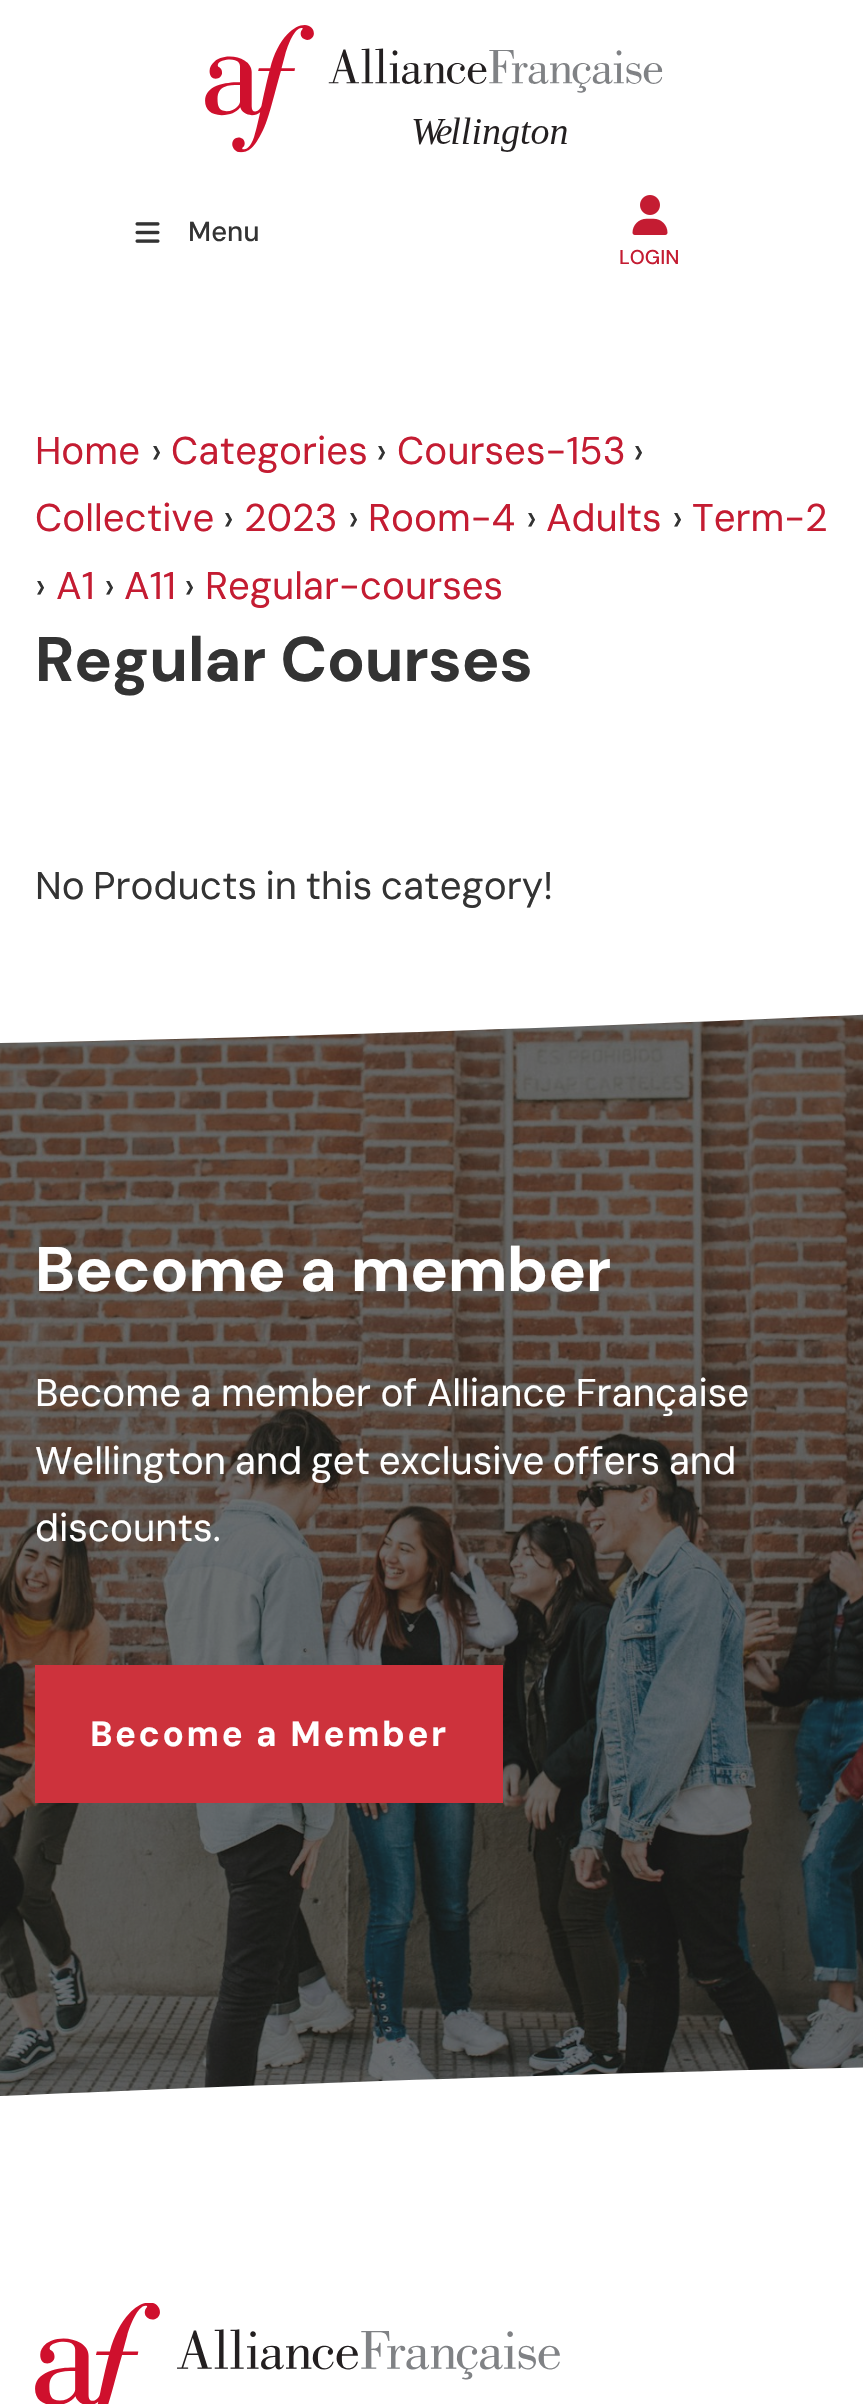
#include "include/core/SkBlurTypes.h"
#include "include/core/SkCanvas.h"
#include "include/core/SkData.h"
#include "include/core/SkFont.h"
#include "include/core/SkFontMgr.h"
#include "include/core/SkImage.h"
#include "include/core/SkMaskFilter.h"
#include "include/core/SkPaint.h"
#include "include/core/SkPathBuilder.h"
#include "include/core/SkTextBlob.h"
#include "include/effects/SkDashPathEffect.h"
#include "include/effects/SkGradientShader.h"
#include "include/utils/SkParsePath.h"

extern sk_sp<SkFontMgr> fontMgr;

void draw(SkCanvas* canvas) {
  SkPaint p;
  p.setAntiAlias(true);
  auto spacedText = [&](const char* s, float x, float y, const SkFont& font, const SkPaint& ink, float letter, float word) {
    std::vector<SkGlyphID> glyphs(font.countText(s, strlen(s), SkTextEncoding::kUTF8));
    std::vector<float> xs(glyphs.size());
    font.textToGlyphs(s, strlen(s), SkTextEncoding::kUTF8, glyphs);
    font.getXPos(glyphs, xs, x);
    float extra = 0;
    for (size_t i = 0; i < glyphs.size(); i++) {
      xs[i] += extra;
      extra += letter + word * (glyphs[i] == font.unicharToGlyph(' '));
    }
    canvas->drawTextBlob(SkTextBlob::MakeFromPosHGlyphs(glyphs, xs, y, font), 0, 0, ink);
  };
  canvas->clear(SK_ColorWHITE);
  canvas->drawImageRect(SkImages::DeferredFromEncodedData(SkData::MakeFromFileName("images/1.png")), SkRect::MakeLTRB(205, 25, 663, 153), SkSamplingOptions());
  canvas->drawImageRect(SkImages::DeferredFromEncodedData(SkData::MakeFromFileName("images/2.png")), SkRect::MakeLTRB(135, 222, 160, 243), SkSamplingOptions());
  canvas->drawImageRect(SkImages::DeferredFromEncodedData(SkData::MakeFromFileName("images/3.png")), SkRect::MakeLTRB(632, 195, 668, 235), SkSamplingOptions());
  canvas->drawImageRect(SkImages::DeferredFromEncodedData(SkData::MakeFromFileName("images/4.png")), SkRect::MakeLTRB(0, 1014, 863, 2097), SkSamplingOptions());
  canvas->save();
  canvas->clipRect(SkRect::MakeLTRB(0, 945, 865, 1070));
  p.setColor(SK_ColorWHITE);
  canvas->drawPath(SkPathBuilder(SkPathFillType::kEvenOdd).moveTo(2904, 1484).lineTo(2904, 705).lineTo(-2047, 705).lineTo(-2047, 1484).lineTo(-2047, 961).cubicTo(-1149, 1136, 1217, 997, 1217, 997).cubicTo(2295, 923, 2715, 962, 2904, 1041).close().detach(), p);
  canvas->restore();
  p.setColor(SkColorSetRGB(205, 50, 60));
  canvas->drawRect(SkRect::MakeLTRB(35, 1665, 503, 1803), p);
  canvas->save();
  canvas->clipRect(SkRect::MakeLTRB(0, 2048, 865, 2173));
  p.setColor(SK_ColorWHITE);
  canvas->drawPath(SkPathBuilder(SkPathFillType::kEvenOdd).moveTo(-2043, 1626).lineTo(-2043, 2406).lineTo(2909, 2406).lineTo(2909, 1626).lineTo(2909, 2149).cubicTo(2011, 1974, -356, 2114, -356, 2114).cubicTo(-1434, 2187, -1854, 2148, -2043, 2069).close().detach(), p);
  canvas->restore();
  canvas->drawImageRect(SkImages::DeferredFromEncodedData(SkData::MakeFromFileName("images/5.png")), SkRect::MakeLTRB(35, 2303, 560, 2404), SkSamplingOptions());
  SkFont font1(fontMgr->matchFamilyStyle("DM Sans", SkFontStyle(500, SkFontStyle::kNormal_Width, SkFontStyle::kUpright_Slant)), 27.5f);
  font1.setSubpixel(true);
  p.setColor(SkColorSetRGB(51, 51, 51));
  canvas->drawString("Menu", 188, 241, font1, p);
  SkFont font2(fontMgr->matchFamilyStyle("DM Sans", SkFontStyle(500, SkFontStyle::kNormal_Width, SkFontStyle::kUpright_Slant)), 20);
  font2.setSubpixel(true);
  p.setColor(SkColorSetRGB(196, 28, 50));
  canvas->drawString("LOGIN", 619, 264, font2, p);
  SkFont font3(fontMgr->matchFamilyStyle("DM Sans", SkFontStyle::Normal()), 38.5f);
  font3.setSubpixel(true);
  canvas->drawString("Home", 35, 464, font3, p);
  p.setColor(SkColorSetRGB(51, 51, 51));
  canvas->drawString("›", 151, 464, font3, p);
  p.setColor(SkColorSetRGB(196, 28, 50));
  canvas->drawString("Categories", 171, 464, font3, p);
  p.setColor(SkColorSetRGB(51, 51, 51));
  canvas->drawString("›", 376, 464, font3, p);
  p.setColor(SkColorSetRGB(196, 28, 50));
  canvas->drawString("Courses-153", 397, 464, font3, p);
  p.setColor(SkColorSetRGB(51, 51, 51));
  canvas->drawString("›", 633, 464, font3, p);
  p.setColor(SkColorSetRGB(196, 28, 50));
  canvas->drawString("Collective", 35, 531, font3, p);
  p.setColor(SkColorSetRGB(51, 51, 51));
  canvas->drawString("›", 223, 531, font3, p);
  p.setColor(SkColorSetRGB(196, 28, 50));
  canvas->drawString("2023", 244, 531, font3, p);
  p.setColor(SkColorSetRGB(51, 51, 51));
  canvas->drawString("›", 348, 531, font3, p);
  p.setColor(SkColorSetRGB(196, 28, 50));
  canvas->drawString("Room-4", 368, 531, font3, p);
  p.setColor(SkColorSetRGB(51, 51, 51));
  canvas->drawString("›", 526, 531, font3, p);
  p.setColor(SkColorSetRGB(196, 28, 50));
  canvas->drawString("Adults", 546, 531, font3, p);
  p.setColor(SkColorSetRGB(51, 51, 51));
  canvas->drawString("›", 672, 531, font3, p);
  p.setColor(SkColorSetRGB(196, 28, 50));
  canvas->drawString("Term-2", 692, 531, font3, p);
  p.setColor(SkColorSetRGB(51, 51, 51));
  canvas->drawString("›", 35, 599, font3, p);
  p.setColor(SkColorSetRGB(196, 28, 50));
  canvas->drawString("A1", 56, 599, font3, p);
  p.setColor(SkColorSetRGB(51, 51, 51));
  canvas->drawString("›", 104, 599, font3, p);
  p.setColor(SkColorSetRGB(196, 28, 50));
  canvas->drawString("A11", 124, 599, font3, p);
  p.setColor(SkColorSetRGB(51, 51, 51));
  canvas->drawString("›", 184, 599, font3, p);
  p.setColor(SkColorSetRGB(196, 28, 50));
  canvas->drawString("Regular-courses", 205, 599, font3, p);
  SkFont font4(fontMgr->matchFamilyStyle("DM Sans", SkFontStyle::Bold()), 63);
  font4.setSubpixel(true);
  p.setColor(SkColorSetRGB(51, 51, 51));
  canvas->drawString("Regular Courses", 35, 681, font4, p);
  spacedText("No Products in this category!", 35, 899, font3, p, 0, -2);
  p.setColor(SK_ColorWHITE);
  canvas->drawString("Become a member", 35, 1291, font4, p);
  spacedText("Become a member of Alliance Française", 35, 1406, font3, p, 0, -1);
  spacedText("Wellington and get exclusive offers and", 35, 1474, font3, p, 0, -1.75f);
  canvas->drawString("discounts.", 35, 1541, font3, p);
  SkFont font5(fontMgr->matchFamilyStyle("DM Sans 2", SkFontStyle::Bold()), 35);
  font5.setSubpixel(true);
  spacedText("Become", 90, 1746, font5, p, 2.5f, 0);
  spacedText("a Member", 256, 1746, font5, p, 2.5f, 0);
}
